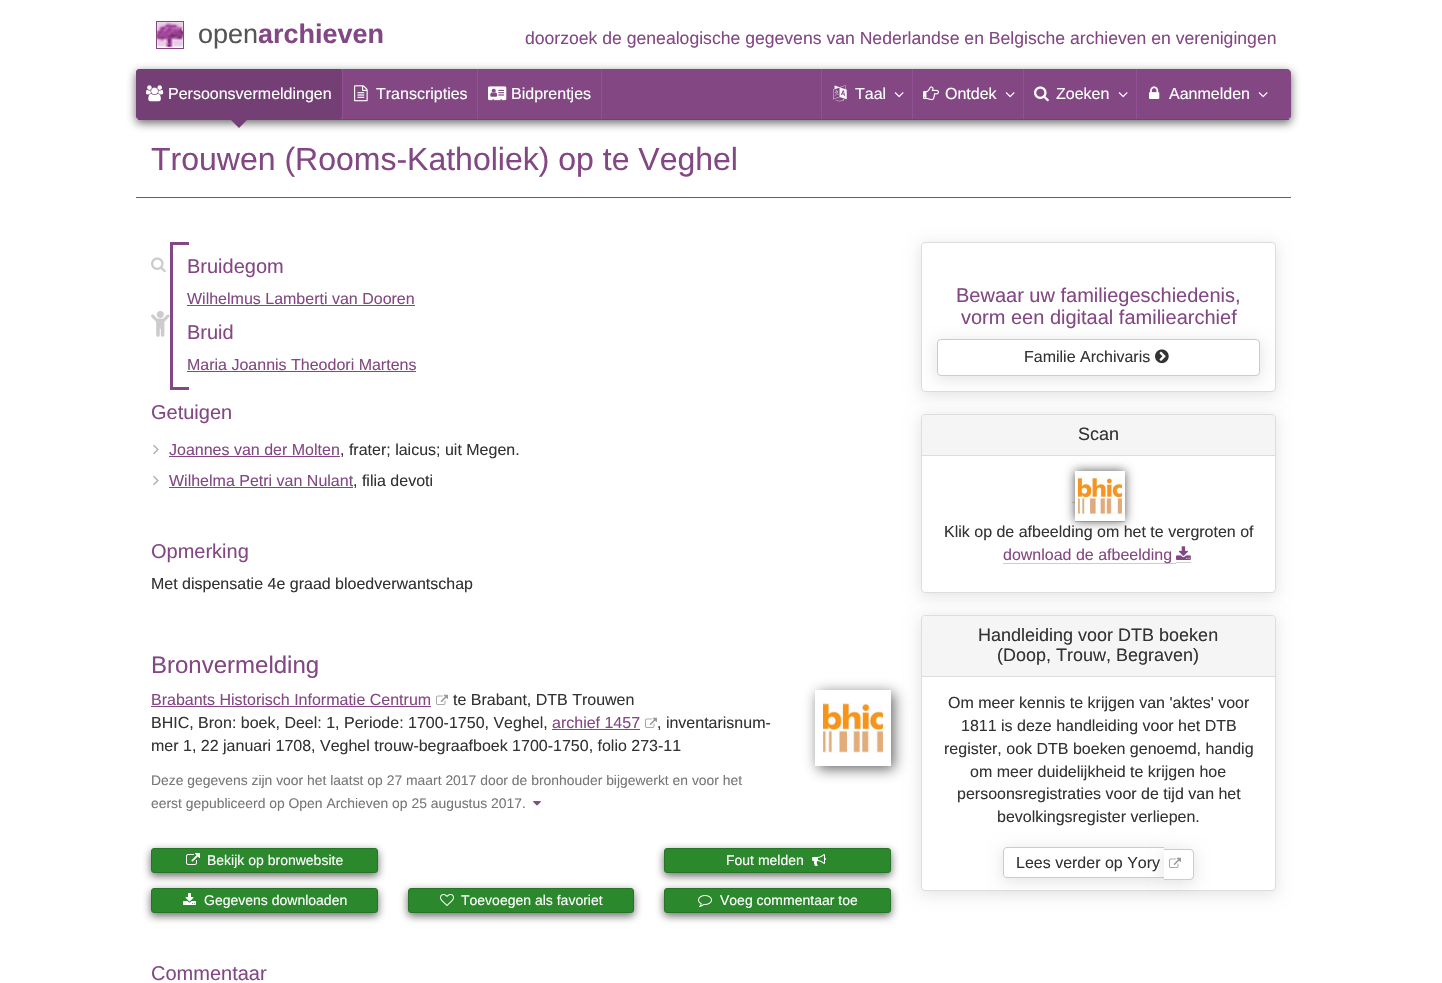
#include "include/core/SkBlurTypes.h"
#include "include/core/SkCanvas.h"
#include "include/core/SkData.h"
#include "include/core/SkFont.h"
#include "include/core/SkFontMgr.h"
#include "include/core/SkImage.h"
#include "include/core/SkMaskFilter.h"
#include "include/core/SkPaint.h"
#include "include/core/SkPathBuilder.h"
#include "include/core/SkTextBlob.h"
#include "include/effects/SkDashPathEffect.h"
#include "include/effects/SkGradientShader.h"
#include "include/utils/SkParsePath.h"

extern sk_sp<SkFontMgr> fontMgr;

void draw(SkCanvas* canvas) {
  SkPaint p;
  p.setAntiAlias(true);
  canvas->clear(SK_ColorWHITE);
  canvas->drawImageRect(SkImages::DeferredFromEncodedData(SkData::MakeFromFileName("images/1.png")), SkRect::MakeLTRB(157, 22, 183, 48), SkSamplingOptions());
  p.setStyle(SkPaint::kStroke_Style);
  p.setStrokeWidth(1);
  p.setColor(SkColorSetRGB(131, 72, 132));
  canvas->drawRect(SkRect::MakeLTRB(156.5f, 21.5f, 183.5f, 48.5f), p);
  p.setStyle(SkPaint::kFill_Style);
  p.setColor(SkColorSetARGB(186, 50, 50, 50));
  p.setMaskFilter(SkMaskFilter::MakeBlur(kNormal_SkBlurStyle, 5));
  canvas->drawRoundRect(SkRect::MakeLTRB(136, 72, 1291, 123), 4, 4, p);
  p.setMaskFilter(nullptr);
  p.setColor(SkColorSetRGB(131, 72, 132));
  canvas->drawPath(SkPathBuilder().moveTo(140, 69).lineTo(1287, 69).cubicTo(1289, 69, 1291, 71, 1291, 73).lineTo(1291, 116).cubicTo(1291, 118, 1289, 119, 1287, 119).lineTo(140, 119).cubicTo(138, 119, 136, 118, 136, 116).lineTo(136, 73).cubicTo(136, 71, 138, 69, 140, 69).close().detach(), p);
  p.setColor(SkColorSetRGB(115, 63, 116));
  canvas->drawRect(SkRect::MakeLTRB(138, 119, 1289, 120), p);
  p.setColor(SkColorSetRGB(131, 72, 132));
  canvas->drawRoundRect(SkRect::MakeLTRB(136, 69, 1276, 119), 4, 4, p);
  p.setColor(SkColorSetRGB(115, 63, 116));
  canvas->drawRoundRect(SkRect::MakeLTRB(136, 69, 342, 119), 4, 4, p);
  canvas->drawImageRect(SkImages::DeferredFromEncodedData(SkData::MakeFromFileName("images/2.png")), SkRect::MakeLTRB(146, 85, 164, 102), SkSamplingOptions());
  canvas->drawPath(SkPathBuilder().moveTo(231, 120).lineTo(247, 120).lineTo(239, 128).close().detach(), p);
  p.setColor(SkColorSetRGB(147, 81, 149));
  canvas->drawRect(SkRect::MakeLTRB(342, 69, 343, 119), p);
  canvas->drawImageRect(SkImages::DeferredFromEncodedData(SkData::MakeFromFileName("images/3.png")), SkRect::MakeLTRB(354, 85, 368, 102), SkSamplingOptions());
  canvas->drawRect(SkRect::MakeLTRB(477, 69, 478, 119), p);
  canvas->drawImageRect(SkImages::DeferredFromEncodedData(SkData::MakeFromFileName("images/4.png")), SkRect::MakeLTRB(488, 86, 507, 101), SkSamplingOptions());
  canvas->drawRect(SkRect::MakeLTRB(601, 69, 602, 119), p);
  canvas->drawRect(SkRect::MakeLTRB(821, 69, 822, 119), p);
  canvas->drawImageRect(SkImages::DeferredFromEncodedData(SkData::MakeFromFileName("images/5.png")), SkRect::MakeLTRB(833, 85, 847, 102), SkSamplingOptions());
  canvas->drawImageRect(SkImages::DeferredFromEncodedData(SkData::MakeFromFileName("images/6.png")), SkRect::MakeLTRB(894, 92, 904, 98), SkSamplingOptions());
  canvas->drawRect(SkRect::MakeLTRB(912, 69, 913, 119), p);
  canvas->drawImageRect(SkImages::DeferredFromEncodedData(SkData::MakeFromFileName("images/7.png")), SkRect::MakeLTRB(923, 86, 939, 101), SkSamplingOptions());
  canvas->drawImageRect(SkImages::DeferredFromEncodedData(SkData::MakeFromFileName("images/6.png")), SkRect::MakeLTRB(1005, 92, 1015, 98), SkSamplingOptions());
  canvas->drawRect(SkRect::MakeLTRB(1023, 69, 1024, 119), p);
  canvas->drawImageRect(SkImages::DeferredFromEncodedData(SkData::MakeFromFileName("images/8.png")), SkRect::MakeLTRB(1034, 86, 1049, 102), SkSamplingOptions());
  canvas->drawImageRect(SkImages::DeferredFromEncodedData(SkData::MakeFromFileName("images/6.png")), SkRect::MakeLTRB(1118, 92, 1128, 98), SkSamplingOptions());
  canvas->drawRect(SkRect::MakeLTRB(1136, 69, 1137, 119), p);
  canvas->drawImageRect(SkImages::DeferredFromEncodedData(SkData::MakeFromFileName("images/9.png")), SkRect::MakeLTRB(1149, 86, 1160, 99), SkSamplingOptions());
  canvas->drawImageRect(SkImages::DeferredFromEncodedData(SkData::MakeFromFileName("images/6.png")), SkRect::MakeLTRB(1258, 92, 1268, 98), SkSamplingOptions());
  p.setColor(SkColorSetRGB(131, 72, 132));
  canvas->drawRect(SkRect::MakeLTRB(136, 197, 1291, 198), p);
  canvas->drawRect(SkRect::MakeLTRB(170, 242, 189, 245), p);
  canvas->drawRect(SkRect::MakeLTRB(170, 387, 189, 390), p);
  canvas->drawRect(SkRect::MakeLTRB(170, 242, 173, 390), p);
  canvas->drawImageRect(SkImages::DeferredFromEncodedData(SkData::MakeFromFileName("images/10.png")), SkRect::MakeLTRB(151, 257, 166, 273), SkSamplingOptions());
  canvas->drawRect(SkRect::MakeLTRB(187, 305, 415, 306), p);
  canvas->drawRect(SkRect::MakeLTRB(187, 371, 416, 372), p);
  canvas->drawImageRect(SkImages::DeferredFromEncodedData(SkData::MakeFromFileName("images/11.png")), SkRect::MakeLTRB(151, 311, 170, 337), SkSamplingOptions());
  canvas->drawImageRect(SkImages::DeferredFromEncodedData(SkData::MakeFromFileName("images/12.png")), SkRect::MakeLTRB(153, 444, 159, 455), SkSamplingOptions());
  canvas->drawRect(SkRect::MakeLTRB(169, 456, 340, 457), p);
  canvas->drawImageRect(SkImages::DeferredFromEncodedData(SkData::MakeFromFileName("images/12.png")), SkRect::MakeLTRB(153, 475, 159, 486), SkSamplingOptions());
  canvas->drawRect(SkRect::MakeLTRB(169, 487, 353, 488), p);
  canvas->drawRect(SkRect::MakeLTRB(151, 706, 431, 707), p);
  canvas->drawImageRect(SkImages::DeferredFromEncodedData(SkData::MakeFromFileName("images/13.png")), SkRect::MakeLTRB(436, 694, 448, 705), SkSamplingOptions());
  canvas->drawRect(SkRect::MakeLTRB(552, 729, 640, 730), p);
  canvas->drawImageRect(SkImages::DeferredFromEncodedData(SkData::MakeFromFileName("images/13.png")), SkRect::MakeLTRB(645, 717, 657, 728), SkSamplingOptions());
  canvas->save();
  canvas->clipPath(SkPathBuilder(SkPathFillType::kEvenOdd).moveTo(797, 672).lineTo(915, 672).lineTo(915, 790).lineTo(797, 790).close().moveTo(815, 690).lineTo(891, 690).lineTo(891, 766).lineTo(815, 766).close().detach(), true);
  p.setColor(SkColorSetARGB(191, 50, 50, 50));
  p.setMaskFilter(SkMaskFilter::MakeBlur(kNormal_SkBlurStyle, 6.5f));
  canvas->drawRect(SkRect::MakeLTRB(818, 693, 894, 769), p);
  p.setMaskFilter(nullptr);
  canvas->restore();
  canvas->drawImageRect(SkImages::DeferredFromEncodedData(SkData::MakeFromFileName("images/14.png")), SkRect::MakeLTRB(823, 703, 883, 753), SkSamplingOptions());
  canvas->drawImageRect(SkImages::DeferredFromEncodedData(SkData::MakeFromFileName("images/15.png")), SkRect::MakeLTRB(533, 801, 541, 806), SkSamplingOptions());
  p.setColor(SkColorSetARGB(186, 50, 50, 50));
  p.setMaskFilter(SkMaskFilter::MakeBlur(kNormal_SkBlurStyle, 4));
  canvas->drawRoundRect(SkRect::MakeLTRB(151, 851, 378, 876), 3, 3, p);
  p.setMaskFilter(nullptr);
  p.setColor(SkColorSetRGB(44, 136, 44));
  canvas->drawRoundRect(SkRect::MakeLTRB(151.5f, 848.5f, 377.5f, 872.5f), 2.5f, 2.5f, p);
  p.setStyle(SkPaint::kStroke_Style);
  p.setColor(SkColorSetRGB(38, 117, 38));
  canvas->drawRoundRect(SkRect::MakeLTRB(151.5f, 848.5f, 377.5f, 872.5f), 2.5f, 2.5f, p);
  canvas->drawImageRect(SkImages::DeferredFromEncodedData(SkData::MakeFromFileName("images/16.png")), SkRect::MakeLTRB(186, 853, 200, 865), SkSamplingOptions());
  p.setStyle(SkPaint::kFill_Style);
  p.setColor(SkColorSetARGB(186, 50, 50, 50));
  p.setMaskFilter(SkMaskFilter::MakeBlur(kNormal_SkBlurStyle, 4));
  canvas->drawRoundRect(SkRect::MakeLTRB(664, 851, 891, 876), 3, 3, p);
  p.setMaskFilter(nullptr);
  p.setColor(SkColorSetRGB(44, 136, 44));
  canvas->drawRoundRect(SkRect::MakeLTRB(664.5f, 848.5f, 890.5f, 872.5f), 2.5f, 2.5f, p);
  p.setStyle(SkPaint::kStroke_Style);
  p.setColor(SkColorSetRGB(38, 117, 38));
  canvas->drawRoundRect(SkRect::MakeLTRB(664.5f, 848.5f, 890.5f, 872.5f), 2.5f, 2.5f, p);
  canvas->drawImageRect(SkImages::DeferredFromEncodedData(SkData::MakeFromFileName("images/17.png")), SkRect::MakeLTRB(812, 854, 826, 866), SkSamplingOptions());
  p.setStyle(SkPaint::kFill_Style);
  p.setColor(SkColorSetARGB(186, 50, 50, 50));
  p.setMaskFilter(SkMaskFilter::MakeBlur(kNormal_SkBlurStyle, 4));
  canvas->drawRoundRect(SkRect::MakeLTRB(151, 891, 378, 916), 3, 3, p);
  p.setMaskFilter(nullptr);
  p.setColor(SkColorSetRGB(44, 136, 44));
  canvas->drawRoundRect(SkRect::MakeLTRB(151.5f, 888.5f, 377.5f, 912.5f), 2.5f, 2.5f, p);
  p.setStyle(SkPaint::kStroke_Style);
  p.setColor(SkColorSetRGB(38, 117, 38));
  canvas->drawRoundRect(SkRect::MakeLTRB(151.5f, 888.5f, 377.5f, 912.5f), 2.5f, 2.5f, p);
  canvas->drawImageRect(SkImages::DeferredFromEncodedData(SkData::MakeFromFileName("images/18.png")), SkRect::MakeLTRB(183, 893, 196, 905), SkSamplingOptions());
  p.setStyle(SkPaint::kFill_Style);
  p.setColor(SkColorSetARGB(186, 50, 50, 50));
  p.setMaskFilter(SkMaskFilter::MakeBlur(kNormal_SkBlurStyle, 4));
  canvas->drawRoundRect(SkRect::MakeLTRB(408, 891, 634, 916), 3, 3, p);
  p.setMaskFilter(nullptr);
  p.setColor(SkColorSetRGB(44, 136, 44));
  canvas->drawRoundRect(SkRect::MakeLTRB(408.5f, 888.5f, 633.5f, 912.5f), 2.5f, 2.5f, p);
  p.setStyle(SkPaint::kStroke_Style);
  p.setColor(SkColorSetRGB(38, 117, 38));
  canvas->drawRoundRect(SkRect::MakeLTRB(408.5f, 888.5f, 633.5f, 912.5f), 2.5f, 2.5f, p);
  canvas->drawImageRect(SkImages::DeferredFromEncodedData(SkData::MakeFromFileName("images/19.png")), SkRect::MakeLTRB(440, 894, 454, 906), SkSamplingOptions());
  p.setStyle(SkPaint::kFill_Style);
  p.setColor(SkColorSetARGB(186, 50, 50, 50));
  p.setMaskFilter(SkMaskFilter::MakeBlur(kNormal_SkBlurStyle, 4));
  canvas->drawRoundRect(SkRect::MakeLTRB(664, 891, 891, 916), 3, 3, p);
  p.setMaskFilter(nullptr);
  p.setColor(SkColorSetRGB(44, 136, 44));
  canvas->drawRoundRect(SkRect::MakeLTRB(664.5f, 888.5f, 890.5f, 912.5f), 2.5f, 2.5f, p);
  p.setStyle(SkPaint::kStroke_Style);
  p.setColor(SkColorSetRGB(38, 117, 38));
  canvas->drawRoundRect(SkRect::MakeLTRB(664.5f, 888.5f, 890.5f, 912.5f), 2.5f, 2.5f, p);
  canvas->drawImageRect(SkImages::DeferredFromEncodedData(SkData::MakeFromFileName("images/20.png")), SkRect::MakeLTRB(698, 895, 712, 907), SkSamplingOptions());
  p.setStyle(SkPaint::kFill_Style);
  p.setColor(SkColorSetARGB(26, 0, 0, 0));
  p.setMaskFilter(SkMaskFilter::MakeBlur(kNormal_SkBlurStyle, 7.5f));
  canvas->drawRoundRect(SkRect::MakeLTRB(920, 244, 1277, 396), 5, 5, p);
  p.setMaskFilter(nullptr);
  p.setColor(SK_ColorWHITE);
  canvas->drawRoundRect(SkRect::MakeLTRB(921.5f, 242.5f, 1275.5f, 391.5f), 3.5f, 3.5f, p);
  p.setStyle(SkPaint::kStroke_Style);
  p.setColor(SkColorSetRGB(221, 221, 221));
  canvas->drawRoundRect(SkRect::MakeLTRB(921.5f, 242.5f, 1275.5f, 391.5f), 3.5f, 3.5f, p);
  p.setStyle(SkPaint::kFill_Style);
  p.setColor(SkColorSetARGB(26, 0, 0, 0));
  p.setMaskFilter(SkMaskFilter::MakeBlur(kNormal_SkBlurStyle, 7.5f));
  canvas->drawRoundRect(SkRect::MakeLTRB(936, 341, 1261, 380), 5, 5, p);
  p.setMaskFilter(nullptr);
  p.setColor(SK_ColorWHITE);
  canvas->drawRoundRect(SkRect::MakeLTRB(937.5f, 339.5f, 1259.5f, 375.5f), 3.5f, 3.5f, p);
  p.setStyle(SkPaint::kStroke_Style);
  p.setColor(SkColorSetRGB(204, 204, 204));
  canvas->drawRoundRect(SkRect::MakeLTRB(937.5f, 339.5f, 1259.5f, 375.5f), 3.5f, 3.5f, p);
  canvas->drawImageRect(SkImages::DeferredFromEncodedData(SkData::MakeFromFileName("images/21.png")), SkRect::MakeLTRB(1155, 349, 1169, 364), SkSamplingOptions());
  p.setStyle(SkPaint::kFill_Style);
  p.setColor(SkColorSetARGB(26, 0, 0, 0));
  p.setMaskFilter(SkMaskFilter::MakeBlur(kNormal_SkBlurStyle, 7.5f));
  canvas->drawRoundRect(SkRect::MakeLTRB(920, 416, 1277, 597), 5, 5, p);
  p.setMaskFilter(nullptr);
  p.setColor(SK_ColorWHITE);
  canvas->drawRoundRect(SkRect::MakeLTRB(921.5f, 414.5f, 1275.5f, 592.5f), 3.5f, 3.5f, p);
  p.setStyle(SkPaint::kStroke_Style);
  p.setColor(SkColorSetRGB(221, 221, 221));
  canvas->drawRoundRect(SkRect::MakeLTRB(921.5f, 414.5f, 1275.5f, 592.5f), 3.5f, 3.5f, p);
  p.setStyle(SkPaint::kFill_Style);
  p.setColor(SkColorSetRGB(245, 245, 245));
  canvas->drawPath(SkPathBuilder().moveTo(925, 415).lineTo(1272, 415).cubicTo(1273.5f, 415, 1275, 416.5f, 1275, 418).lineTo(1275, 456).lineTo(922, 456).lineTo(922, 418).cubicTo(922, 416.5f, 923.5f, 415, 925, 415).close().detach(), p);
  p.setColor(SkColorSetRGB(221, 221, 221));
  canvas->drawRect(SkRect::MakeLTRB(922, 455, 1275, 456), p);
  p.setColor(SkColorSetRGB(204, 204, 204));
  canvas->drawRect(SkRect::MakeLTRB(1072, 502, 1075, 503), p);
  canvas->drawRect(SkRect::MakeLTRB(1075, 521, 1125, 522), p);
  p.setColor(SkColorSetRGB(85, 85, 85));
  p.setMaskFilter(SkMaskFilter::MakeBlur(kNormal_SkBlurStyle, 5));
  canvas->drawRect(SkRect::MakeLTRB(1075, 471, 1125, 521), p);
  p.setMaskFilter(nullptr);
  p.setColor(SK_ColorWHITE);
  canvas->drawRect(SkRect::MakeLTRB(1075, 471, 1125, 521), p);
  canvas->drawImageRect(SkImages::DeferredFromEncodedData(SkData::MakeFromFileName("images/22.png")), SkRect::MakeLTRB(1077, 477, 1122, 515), SkSamplingOptions());
  p.setColor(SkColorSetRGB(204, 204, 204));
  canvas->drawRect(SkRect::MakeLTRB(1003, 563, 1176, 564), p);
  canvas->drawRect(SkRect::MakeLTRB(1176, 562, 1191, 563), p);
  canvas->drawImageRect(SkImages::DeferredFromEncodedData(SkData::MakeFromFileName("images/23.png")), SkRect::MakeLTRB(1176, 546, 1191, 560), SkSamplingOptions());
  p.setColor(SkColorSetARGB(26, 0, 0, 0));
  p.setMaskFilter(SkMaskFilter::MakeBlur(kNormal_SkBlurStyle, 7.5f));
  canvas->drawRoundRect(SkRect::MakeLTRB(920, 617, 1277, 895), 5, 5, p);
  p.setMaskFilter(nullptr);
  p.setColor(SK_ColorWHITE);
  canvas->drawRoundRect(SkRect::MakeLTRB(921.5f, 615.5f, 1275.5f, 890.5f), 3.5f, 3.5f, p);
  p.setStyle(SkPaint::kStroke_Style);
  p.setColor(SkColorSetRGB(221, 221, 221));
  canvas->drawRoundRect(SkRect::MakeLTRB(921.5f, 615.5f, 1275.5f, 890.5f), 3.5f, 3.5f, p);
  p.setStyle(SkPaint::kFill_Style);
  p.setColor(SkColorSetRGB(245, 245, 245));
  canvas->drawPath(SkPathBuilder().moveTo(925, 616).lineTo(1272, 616).cubicTo(1273.5f, 616, 1275, 617.5f, 1275, 619).lineTo(1275, 677).lineTo(922, 677).lineTo(922, 619).cubicTo(922, 617.5f, 923.5f, 616, 925, 616).close().detach(), p);
  p.setColor(SkColorSetRGB(221, 221, 221));
  canvas->drawRect(SkRect::MakeLTRB(922, 676, 1275, 677), p);
  p.setColor(SkColorSetARGB(26, 0, 0, 0));
  p.setMaskFilter(SkMaskFilter::MakeBlur(kNormal_SkBlurStyle, 7.5f));
  canvas->drawRoundRect(SkRect::MakeLTRB(1002, 849, 1165, 882), 5, 5, p);
  p.setMaskFilter(nullptr);
  p.setColor(SK_ColorWHITE);
  canvas->drawPath(SkPathBuilder().moveTo(1007, 847).lineTo(1164, 847).lineTo(1164, 878).lineTo(1007, 878).cubicTo(1005, 878, 1003, 876, 1003, 874).lineTo(1003, 851).cubicTo(1003, 849, 1005, 847, 1007, 847).close().detach(), p);
  p.setColor(SkColorSetRGB(204, 204, 204));
  canvas->drawPath(SkPathBuilder(SkPathFillType::kEvenOdd).moveTo(1007, 847).lineTo(1164, 847).lineTo(1164, 878).lineTo(1007, 878).cubicTo(1005, 878, 1003, 876, 1003, 874).lineTo(1003, 851).cubicTo(1003, 849, 1005, 847, 1007, 847).close().moveTo(1007, 848).lineTo(1164, 848).lineTo(1164, 877).lineTo(1007, 877).cubicTo(1005, 877, 1004, 876, 1004, 874).lineTo(1004, 851).cubicTo(1004, 849, 1005, 848, 1007, 848).close().detach(), p);
  p.setColor(SkColorSetARGB(26, 0, 0, 0));
  p.setMaskFilter(SkMaskFilter::MakeBlur(kNormal_SkBlurStyle, 7.5f));
  canvas->drawRoundRect(SkRect::MakeLTRB(1163, 851, 1195, 884), 5, 5, p);
  p.setMaskFilter(nullptr);
  p.setColor(SK_ColorWHITE);
  canvas->drawPath(SkPathBuilder().moveTo(1164, 849).lineTo(1190, 849).cubicTo(1192, 849, 1194, 851, 1194, 853).lineTo(1194, 876).cubicTo(1194, 878, 1192, 880, 1190, 880).lineTo(1164, 880).close().detach(), p);
  p.setColor(SkColorSetRGB(204, 204, 204));
  canvas->drawPath(SkPathBuilder(SkPathFillType::kEvenOdd).moveTo(1164, 849).lineTo(1190, 849).cubicTo(1192, 849, 1194, 851, 1194, 853).lineTo(1194, 876).cubicTo(1194, 878, 1192, 880, 1190, 880).lineTo(1164, 880).close().moveTo(1164, 850).lineTo(1190, 850).cubicTo(1191.5f, 850, 1193, 851.5f, 1193, 853).lineTo(1193, 876).cubicTo(1193, 877.5f, 1191.5f, 879, 1190, 879).lineTo(1164, 879).close().detach(), p);
  canvas->drawImageRect(SkImages::DeferredFromEncodedData(SkData::MakeFromFileName("images/13.png")), SkRect::MakeLTRB(1169, 857, 1181, 868), SkSamplingOptions());
  SkFont font1(fontMgr->matchFamilyStyle("Liberation Sans", SkFontStyle::Normal()), 27);
  font1.setSubpixel(true);
  p.setColor(SkColorSetRGB(85, 85, 85));
  canvas->drawString("open", 198, 43, font1, p);
  SkFont font2(fontMgr->matchFamilyStyle("Liberation Sans", SkFontStyle::Bold()), 27);
  font2.setSubpixel(true);
  p.setColor(SkColorSetRGB(131, 72, 132));
  canvas->drawString("archieven", 258, 43, font2, p);
  SkFont font3(fontMgr->matchFamilyStyle("Liberation Sans", SkFontStyle::Normal()), 17.6f);
  font3.setSubpixel(true);
  canvas->drawString("doorzoek de genealogische gegevens van Nederlandse en Belgische archieven en verenigingen", 525, 44, font3, p);
  SkFont font4(fontMgr->matchFamilyStyle("Liberation Sans", SkFontStyle::Normal()), 16);
  font4.setSubpixel(true);
  p.setColor(SK_ColorWHITE);
  canvas->drawString("Persoonsvermeldingen", 168, 99, font4, p);
  canvas->drawString("Transcripties", 376, 99, font4, p);
  canvas->drawString("Bidprentjes", 511, 99, font4, p);
  canvas->drawString("Taal", 855, 99, font4, p);
  canvas->drawString("Ontdek", 945, 99, font4, p);
  canvas->drawString("Zoeken", 1056, 99, font4, p);
  canvas->drawString("Aanmelden", 1169, 99, font4, p);
  SkFont font5(fontMgr->matchFamilyStyle("Liberation Sans", SkFontStyle::Normal()), 32);
  font5.setSubpixel(true);
  p.setColor(SkColorSetRGB(131, 72, 132));
  canvas->drawString("Trouwen (Rooms-Katholiek) op te Veghel", 151, 170, font5, p);
  SkFont font6(fontMgr->matchFamilyStyle("Liberation Sans", SkFontStyle::Normal()), 20);
  font6.setSubpixel(true);
  canvas->drawString("Bruidegom", 187, 273, font6, p);
  canvas->drawString("Wilhelmus Lamberti van Dooren", 187, 304, font4, p);
  canvas->drawString("Bruid", 187, 339, font6, p);
  canvas->drawString("Maria Joannis Theodori Martens", 187, 370, font4, p);
  canvas->drawString("Getuigen", 151, 419, font6, p);
  canvas->drawString("Joannes van der Molten", 169, 455, font4, p);
  p.setColor(SkColorSetRGB(51, 51, 51));
  canvas->drawString(", frater; laicus; uit Megen.", 340, 455, font4, p);
  p.setColor(SkColorSetRGB(131, 72, 132));
  canvas->drawString("Wilhelma Petri van Nulant", 169, 486, font4, p);
  p.setColor(SkColorSetRGB(51, 51, 51));
  canvas->drawString(", filia devoti", 353, 486, font4, p);
  p.setColor(SkColorSetRGB(131, 72, 132));
  canvas->drawString("Opmerking", 151, 558, font6, p);
  p.setColor(SkColorSetRGB(51, 51, 51));
  canvas->drawString("Met dispensatie 4e graad bloedverwantschap", 151, 589, font4, p);
  SkFont font7(fontMgr->matchFamilyStyle("Liberation Sans", SkFontStyle::Normal()), 24);
  font7.setSubpixel(true);
  p.setColor(SkColorSetRGB(131, 72, 132));
  canvas->drawString("Bronvermelding", 151, 673, font7, p);
  canvas->drawString("Brabants Historisch Informatie Centrum", 151, 705, font4, p);
  p.setColor(SkColorSetRGB(51, 51, 51));
  canvas->drawString("te Brabant, DTB Trouwen", 453, 705, font4, p);
  canvas->drawString("BHIC, Bron: boek, Deel: 1, Periode: 1700-1750, Veghel,", 151, 728, font4, p);
  p.setColor(SkColorSetRGB(131, 72, 132));
  canvas->drawString("archief 1457", 552, 728, font4, p);
  p.setColor(SkColorSetRGB(51, 51, 51));
  canvas->drawString(", inventarisnum-", 657, 728, font4, p);
  canvas->drawString("mer 1, 22 januari 1708, Veghel trouw-begraafboek 1700-1750, folio 273-11", 151, 751, font4, p);
  SkFont font8(fontMgr->matchFamilyStyle("Liberation Sans", SkFontStyle::Normal()), 13.9f);
  font8.setSubpixel(true);
  p.setColor(SkColorSetRGB(119, 119, 119));
  canvas->drawString("Deze gegevens zijn voor het laatst op 27 maart 2017 door de bronhouder bijgewerkt en voor het", 151, 785, font8, p);
  canvas->drawString("eerst gepubliceerd op Open Archieven op 25 augustus 2017.", 151, 808, font8, p);
  SkFont font9(fontMgr->matchFamilyStyle("Liberation Sans", SkFontStyle::Normal()), 14);
  font9.setSubpixel(true);
  p.setColor(SK_ColorWHITE);
  canvas->drawString("Bekijk op bronwebsite", 207, 865, font9, p);
  canvas->drawString("Fout melden", 726, 865, font9, p);
  canvas->drawString("Gegevens downloaden", 204, 905, font9, p);
  canvas->drawString("Toevoegen als favoriet", 461, 905, font9, p);
  canvas->drawString("Voeg commentaar toe", 720, 905, font9, p);
  p.setColor(SkColorSetRGB(131, 72, 132));
  canvas->drawString("Commentaar", 151, 980, font6, p);
  canvas->drawString("Bewaar uw familiegeschiedenis,", 956, 302, font6, p);
  canvas->drawString("vorm een digitaal familiearchief", 961, 324, font6, p);
  p.setColor(SkColorSetRGB(51, 51, 51));
  canvas->drawString("Familie Archivaris", 1024, 362, font4, p);
  SkFont font10(fontMgr->matchFamilyStyle("Liberation Sans", SkFontStyle::Normal()), 18);
  font10.setSubpixel(true);
  canvas->drawString("Scan", 1078, 440, font10, p);
  canvas->drawString("Klik op de afbeelding om het te vergroten of", 944, 537, font4, p);
  p.setColor(SkColorSetRGB(131, 72, 132));
  canvas->drawString("download de afbeelding", 1003, 560, font4, p);
  p.setColor(SkColorSetRGB(51, 51, 51));
  canvas->drawString("Handleiding voor DTB boeken", 978, 641, font10, p);
  canvas->drawString("(Doop, Trouw, Begraven)", 997, 661, font10, p);
  canvas->drawString("Om meer kennis te krijgen van 'aktes' voor", 948, 708, font4, p);
  canvas->drawString("1811 is deze handleiding voor het DTB", 961, 731, font4, p);
  canvas->drawString("register, ook DTB boeken genoemd, handig", 944, 754, font4, p);
  canvas->drawString("om meer duidelijkheid te krijgen hoe", 970, 777, font4, p);
  canvas->drawString("persoonsregistraties voor de tijd van het", 957, 799, font4, p);
  canvas->drawString("bevolkingsregister verliepen.", 997, 822, font4, p);
  canvas->drawString("Lees verder op Yory", 1016, 868, font4, p);
}
